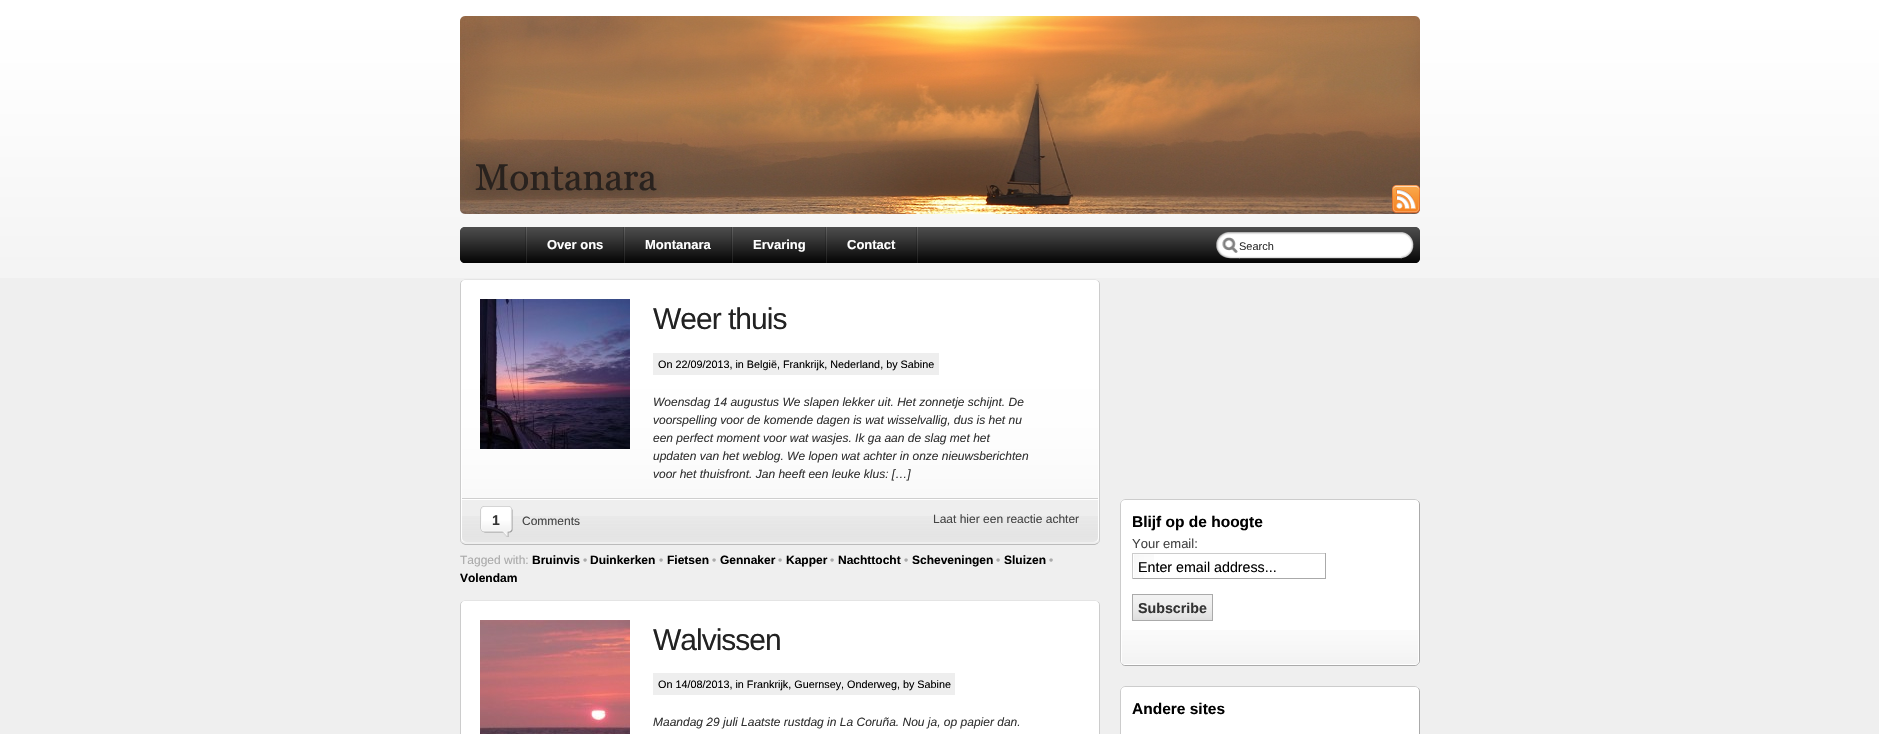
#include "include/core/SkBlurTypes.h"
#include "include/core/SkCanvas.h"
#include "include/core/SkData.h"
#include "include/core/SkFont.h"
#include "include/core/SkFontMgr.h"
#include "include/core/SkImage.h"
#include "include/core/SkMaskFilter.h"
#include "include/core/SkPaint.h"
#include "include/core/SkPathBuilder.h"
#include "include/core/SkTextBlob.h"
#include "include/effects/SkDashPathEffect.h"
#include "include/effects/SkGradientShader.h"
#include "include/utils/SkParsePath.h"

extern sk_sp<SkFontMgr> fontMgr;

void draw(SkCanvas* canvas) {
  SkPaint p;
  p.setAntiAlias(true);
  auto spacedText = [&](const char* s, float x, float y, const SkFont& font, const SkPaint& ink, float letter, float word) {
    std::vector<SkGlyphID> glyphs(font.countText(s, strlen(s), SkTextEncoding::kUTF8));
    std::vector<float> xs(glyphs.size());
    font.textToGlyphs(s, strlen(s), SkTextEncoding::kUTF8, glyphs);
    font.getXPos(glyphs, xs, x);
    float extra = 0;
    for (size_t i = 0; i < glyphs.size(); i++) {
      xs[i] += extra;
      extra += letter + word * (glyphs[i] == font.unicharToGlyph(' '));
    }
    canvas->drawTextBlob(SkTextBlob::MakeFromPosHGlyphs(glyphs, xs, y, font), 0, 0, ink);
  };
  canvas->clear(SkColorSetRGB(239, 239, 239));
  canvas->drawImageRect(SkImages::DeferredFromEncodedData(SkData::MakeFromFileName("images/1.png")), SkRect::MakeLTRB(0, 0, 1879, 278), SkSamplingOptions());
  canvas->drawImageRect(SkImages::DeferredFromEncodedData(SkData::MakeFromFileName("images/2.png")), SkRect::MakeLTRB(460, 16, 1420, 214), SkSamplingOptions());
  canvas->drawImageRect(SkImages::DeferredFromEncodedData(SkData::MakeFromFileName("images/3.png")), SkRect::MakeLTRB(1392, 185, 1420, 213), SkSamplingOptions());
  canvas->drawImageRect(SkImages::DeferredFromEncodedData(SkData::MakeFromFileName("images/4.png")), SkRect::MakeLTRB(460, 227, 1420, 263), SkSamplingOptions());
  canvas->drawImageRect(SkImages::DeferredFromEncodedData(SkData::MakeFromFileName("images/5.png")), SkRect::MakeLTRB(525, 227, 527, 263), SkSamplingOptions());
  canvas->drawImageRect(SkImages::DeferredFromEncodedData(SkData::MakeFromFileName("images/5.png")), SkRect::MakeLTRB(623, 227, 625, 263), SkSamplingOptions());
  canvas->drawImageRect(SkImages::DeferredFromEncodedData(SkData::MakeFromFileName("images/5.png")), SkRect::MakeLTRB(731, 227, 733, 263), SkSamplingOptions());
  canvas->drawImageRect(SkImages::DeferredFromEncodedData(SkData::MakeFromFileName("images/5.png")), SkRect::MakeLTRB(825, 227, 827, 263), SkSamplingOptions());
  canvas->drawImageRect(SkImages::DeferredFromEncodedData(SkData::MakeFromFileName("images/5.png")), SkRect::MakeLTRB(916, 227, 918, 263), SkSamplingOptions());
  canvas->drawImageRect(SkImages::DeferredFromEncodedData(SkData::MakeFromFileName("images/6.png")), SkRect::MakeLTRB(1216, 232, 1240, 259), SkSamplingOptions());
  canvas->drawImageRect(SkImages::DeferredFromEncodedData(SkData::MakeFromFileName("images/7.png")), SkRect::MakeLTRB(1239, 232, 1402, 259), SkSamplingOptions());
  canvas->drawImageRect(SkImages::DeferredFromEncodedData(SkData::MakeFromFileName("images/8.png")), SkRect::MakeLTRB(1401, 232, 1414, 259), SkSamplingOptions());
  p.setStyle(SkPaint::kStroke_Style);
  p.setStrokeWidth(1);
  p.setColor(SkColorSetRGB(228, 228, 228));
  canvas->drawPath(SkPathBuilder().moveTo(462, 281).lineTo(465, 279.5f).lineTo(1095, 279.5f).lineTo(1098, 281).detach(), p);
  p.setColor(SkColorSetRGB(204, 204, 204));
  canvas->drawPath(SkPathBuilder().moveTo(1098, 281).cubicTo(1099, 281.5f, 1099.5f, 283, 1099.5f, 284).lineTo(1099.5f, 540).cubicTo(1099.5f, 541, 1099, 542.5f, 1098, 543).detach(), p);
  p.setColor(SkColorSetRGB(187, 187, 187));
  canvas->drawPath(SkPathBuilder().moveTo(1098, 543).lineTo(1095, 544.5f).lineTo(465, 544.5f).lineTo(462, 543).detach(), p);
  p.setColor(SkColorSetRGB(204, 204, 204));
  canvas->drawPath(SkPathBuilder().moveTo(462, 543).cubicTo(461, 542.5f, 460.5f, 541, 460.5f, 540).lineTo(460.5f, 284).cubicTo(460.5f, 283, 461, 281.5f, 462, 281).detach(), p);
  canvas->drawImageRect(SkImages::DeferredFromEncodedData(SkData::MakeFromFileName("images/9.png")), SkRect::MakeLTRB(461, 280, 1099, 542), SkSamplingOptions());
  p.setStyle(SkPaint::kFill_Style);
  p.setColor(SK_ColorWHITE);
  canvas->drawPath(SkPathBuilder(SkPathFillType::kEvenOdd).moveTo(466, 280).lineTo(1094, 280).cubicTo(1097, 280, 1099, 282, 1099, 285).lineTo(1099, 537).cubicTo(1099, 540, 1097, 542, 1094, 542).lineTo(466, 542).cubicTo(463, 542, 461, 540, 461, 537).lineTo(461, 285).cubicTo(461, 282, 463, 280, 466, 280).close().moveTo(466, 281).lineTo(1094, 281).cubicTo(1096, 281, 1098, 283, 1098, 285).lineTo(1098, 537).cubicTo(1098, 540, 1096, 542, 1094, 542).lineTo(466, 542).cubicTo(464, 542, 462, 540, 462, 537).lineTo(462, 285).cubicTo(462, 283, 464, 281, 466, 281).close().detach(), p);
  canvas->drawImageRect(SkImages::DeferredFromEncodedData(SkData::MakeFromFileName("images/10.png")), SkRect::MakeLTRB(480, 299, 630, 449), SkSamplingOptions());
  p.setColor(SkColorSetRGB(238, 238, 238));
  canvas->drawRect(SkRect::MakeLTRB(653, 353, 939, 375), p);
  canvas->drawImageRect(SkImages::DeferredFromEncodedData(SkData::MakeFromFileName("images/11.png")), SkRect::MakeLTRB(462, 498, 1098, 500), SkSamplingOptions());
  canvas->drawPath(SkPathBuilder().moveTo(462, 500).lineTo(1098, 500).lineTo(1098, 537).cubicTo(1098, 540, 1096, 542, 1093, 542).lineTo(467, 542).cubicTo(464, 542, 462, 540, 462, 537).close().detach(), p);
  canvas->drawImageRect(SkImages::DeferredFromEncodedData(SkData::MakeFromFileName("images/12.png")), SkRect::MakeLTRB(462, 516, 1098, 542), SkSamplingOptions());
  canvas->drawImageRect(SkImages::DeferredFromEncodedData(SkData::MakeFromFileName("images/13.png")), SkRect::MakeLTRB(480, 506, 513, 537), SkSamplingOptions());
  p.setStyle(SkPaint::kStroke_Style);
  p.setColor(SkColorSetRGB(228, 228, 228));
  canvas->drawPath(SkPathBuilder().moveTo(462, 602).lineTo(465, 600.5f).lineTo(1095, 600.5f).lineTo(1098, 602).detach(), p);
  p.setColor(SkColorSetRGB(204, 204, 204));
  canvas->drawPath(SkPathBuilder().moveTo(1098, 602).cubicTo(1099, 602.5f, 1099.5f, 604, 1099.5f, 605).lineTo(1099.5f, 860).cubicTo(1099.5f, 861, 1099, 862.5f, 1098, 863).detach(), p);
  canvas->drawPath(SkPathBuilder().moveTo(462, 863).cubicTo(461, 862.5f, 460.5f, 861, 460.5f, 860).lineTo(460.5f, 605).cubicTo(460.5f, 604, 461, 602.5f, 462, 602).detach(), p);
  p.setStyle(SkPaint::kFill_Style);
  p.setColor(SK_ColorWHITE);
  canvas->drawRoundRect(SkRect::MakeLTRB(461, 601, 1099, 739), 5, 5, p);
  canvas->drawImageRect(SkImages::DeferredFromEncodedData(SkData::MakeFromFileName("images/14.png")), SkRect::MakeLTRB(461, 601, 1099, 604), SkSamplingOptions());
  canvas->drawPath(SkPathBuilder(SkPathFillType::kEvenOdd).moveTo(466, 601).lineTo(1094, 601).cubicTo(1097, 601, 1099, 603, 1099, 606).lineTo(1099, 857).cubicTo(1099, 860, 1097, 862, 1094, 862).lineTo(466, 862).cubicTo(463, 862, 461, 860, 461, 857).lineTo(461, 606).cubicTo(461, 603, 463, 601, 466, 601).close().moveTo(466, 602).lineTo(1094, 602).cubicTo(1096, 602, 1098, 604, 1098, 606).lineTo(1098, 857).cubicTo(1098, 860, 1096, 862, 1094, 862).lineTo(466, 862).cubicTo(464, 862, 462, 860, 462, 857).lineTo(462, 606).cubicTo(462, 604, 464, 602, 466, 602).close().detach(), p);
  canvas->drawImageRect(SkImages::DeferredFromEncodedData(SkData::MakeFromFileName("images/15.png")), SkRect::MakeLTRB(480, 620, 630, 734), SkSamplingOptions());
  p.setColor(SkColorSetRGB(238, 238, 238));
  canvas->drawRect(SkRect::MakeLTRB(653, 673, 955, 695), p);
  p.setColor(SK_ColorWHITE);
  canvas->drawRoundRect(SkRect::MakeLTRB(1120, 499, 1420, 666), 5, 5, p);
  p.setStyle(SkPaint::kStroke_Style);
  p.setColor(SkColorSetRGB(170, 170, 170));
  canvas->drawPath(SkPathBuilder().moveTo(1418, 501).cubicTo(1419, 501.5f, 1419.5f, 503, 1419.5f, 504).lineTo(1419.5f, 661).cubicTo(1419.5f, 662, 1419, 663.5f, 1418, 664).cubicTo(1417.5f, 665, 1416, 665.5f, 1415, 665.5f).lineTo(1125, 665.5f).cubicTo(1124, 665.5f, 1122.5f, 665, 1122, 664).detach(), p);
  p.setColor(SkColorSetRGB(204, 204, 204));
  canvas->drawPath(SkPathBuilder().moveTo(1122, 664).cubicTo(1121, 663.5f, 1120.5f, 662, 1120.5f, 661).lineTo(1120.5f, 504).cubicTo(1120.5f, 503, 1121, 501.5f, 1122, 501).cubicTo(1122.5f, 500, 1124, 499.5f, 1125, 499.5f).lineTo(1415, 499.5f).cubicTo(1416, 499.5f, 1417.5f, 500, 1418, 501).detach(), p);
  canvas->drawImageRect(SkImages::DeferredFromEncodedData(SkData::MakeFromFileName("images/16.png")), SkRect::MakeLTRB(1122, 630, 1418, 664), SkSamplingOptions());
  canvas->drawImageRect(SkImages::DeferredFromEncodedData(SkData::MakeFromFileName("images/17.png")), SkRect::MakeLTRB(1134, 554, 1154, 578), SkSamplingOptions());
  p.setStyle(SkPaint::kFill_Style);
  canvas->drawRect(SkRect::MakeLTRB(1132, 553, 1326, 554), p);
  p.setColor(SkColorSetRGB(170, 170, 170));
  canvas->drawRect(SkRect::MakeLTRB(1325, 553, 1326, 579), p);
  canvas->drawRect(SkRect::MakeLTRB(1132, 578, 1326, 579), p);
  p.setColor(SkColorSetRGB(204, 204, 204));
  canvas->drawRect(SkRect::MakeLTRB(1132, 553, 1133, 579), p);
  canvas->drawImageRect(SkImages::DeferredFromEncodedData(SkData::MakeFromFileName("images/18.png")), SkRect::MakeLTRB(1133, 595, 1212, 620), SkSamplingOptions());
  p.setStyle(SkPaint::kStroke_Style);
  p.setColor(SkColorSetRGB(170, 170, 170));
  canvas->drawRect(SkRect::MakeLTRB(1132.5f, 594.5f, 1212.5f, 620.5f), p);
  p.setStyle(SkPaint::kFill_Style);
  p.setColor(SK_ColorWHITE);
  canvas->drawRoundRect(SkRect::MakeLTRB(1120, 686, 1420, 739), 5, 5, p);
  p.setStyle(SkPaint::kStroke_Style);
  p.setColor(SkColorSetRGB(170, 170, 170));
  canvas->drawPath(SkPathBuilder().moveTo(1418, 688).cubicTo(1419, 688.5f, 1419.5f, 690, 1419.5f, 691).lineTo(1419.5f, 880).cubicTo(1419.5f, 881, 1419, 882.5f, 1418, 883).cubicTo(1417.5f, 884, 1416, 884.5f, 1415, 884.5f).lineTo(1125, 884.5f).cubicTo(1124, 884.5f, 1122.5f, 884, 1122, 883).detach(), p);
  p.setColor(SkColorSetRGB(204, 204, 204));
  canvas->drawPath(SkPathBuilder().moveTo(1122, 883).cubicTo(1121, 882.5f, 1120.5f, 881, 1120.5f, 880).lineTo(1120.5f, 691).cubicTo(1120.5f, 690, 1121, 688.5f, 1122, 688).cubicTo(1122.5f, 687, 1124, 686.5f, 1125, 686.5f).lineTo(1415, 686.5f).cubicTo(1416, 686.5f, 1417.5f, 687, 1418, 688).detach(), p);
  SkFont font1(fontMgr->matchFamilyStyle("Liberation Sans", SkFontStyle::Bold()), 13);
  font1.setSubpixel(true);
  p.setStyle(SkPaint::kFill_Style);
  p.setColor(SK_ColorWHITE);
  canvas->drawString("Over ons", 547, 249, font1, p);
  canvas->drawString("Montanara", 645, 249, font1, p);
  canvas->drawString("Ervaring", 753, 249, font1, p);
  canvas->drawString("Contact", 847, 249, font1, p);
  SkFont font2(fontMgr->matchFamilyStyle("Liberation Sans", SkFontStyle::Normal()), 11);
  font2.setSubpixel(true);
  p.setColor(SkColorSetRGB(51, 51, 51));
  canvas->drawString("Search", 1239, 250, font2, p);
  SkFont font3(fontMgr->matchFamilyStyle("Liberation Sans", SkFontStyle::Normal()), 30);
  font3.setSubpixel(true);
  p.setColor(SkColorSetRGB(34, 34, 34));
  spacedText("Weer thuis", 653, 329, font3, p, -1, 0);
  SkFont font4(fontMgr->matchFamilyStyle("Liberation Sans", SkFontStyle::Normal()), 10.8f);
  font4.setSubpixel(true);
  p.setColor(SK_ColorBLACK);
  canvas->drawString("On 22/09/2013, in België, Frankrijk, Nederland, by Sabine", 658, 368, font4, p);
  SkFont font5(fontMgr->matchFamilyStyle("Liberation Sans", SkFontStyle::Italic()), 12);
  font5.setSubpixel(true);
  p.setColor(SkColorSetRGB(51, 51, 51));
  canvas->drawString("Woensdag 14 augustus We slapen lekker uit. Het zonnetje schijnt. De", 653, 406, font5, p);
  canvas->drawString("voorspelling voor de komende dagen is wat wisselvallig, dus is het nu", 653, 424, font5, p);
  canvas->drawString("een perfect moment voor wat wasjes. Ik ga aan de slag met het", 653, 442, font5, p);
  canvas->drawString("updaten van het weblog. We lopen wat achter in onze nieuwsberichten", 653, 460, font5, p);
  canvas->drawString("voor het thuisfront. Jan heeft een leuke klus: […]", 653, 478, font5, p);
  SkFont font6(fontMgr->matchFamilyStyle("Liberation Sans", SkFontStyle::Bold()), 14);
  font6.setSubpixel(true);
  canvas->drawString("1", 492, 525, font6, p);
  SkFont font7(fontMgr->matchFamilyStyle("Liberation Sans", SkFontStyle::Normal()), 12);
  font7.setSubpixel(true);
  p.setColor(SkColorSetRGB(68, 68, 68));
  canvas->drawString("Comments", 522, 525, font7, p);
  canvas->drawString("Laat hier een reactie achter", 933, 523, font7, p);
  p.setColor(SkColorSetRGB(170, 170, 170));
  canvas->drawString("Tagged with:", 460, 564, font7, p);
  SkFont font8(fontMgr->matchFamilyStyle("Liberation Sans", SkFontStyle::Bold()), 12);
  font8.setSubpixel(true);
  p.setColor(SK_ColorBLACK);
  canvas->drawString("Bruinvis", 532, 564, font8, p);
  p.setColor(SkColorSetRGB(170, 170, 170));
  canvas->drawString("•", 583, 564, font7, p);
  p.setColor(SK_ColorBLACK);
  canvas->drawString("Duinkerken", 590, 564, font8, p);
  p.setColor(SkColorSetRGB(170, 170, 170));
  canvas->drawString("•", 659, 564, font7, p);
  p.setColor(SK_ColorBLACK);
  canvas->drawString("Fietsen", 667, 564, font8, p);
  p.setColor(SkColorSetRGB(170, 170, 170));
  canvas->drawString("•", 712, 564, font7, p);
  p.setColor(SK_ColorBLACK);
  canvas->drawString("Gennaker", 720, 564, font8, p);
  p.setColor(SkColorSetRGB(170, 170, 170));
  canvas->drawString("•", 778, 564, font7, p);
  p.setColor(SK_ColorBLACK);
  canvas->drawString("Kapper", 786, 564, font8, p);
  p.setColor(SkColorSetRGB(170, 170, 170));
  canvas->drawString("•", 830, 564, font7, p);
  p.setColor(SK_ColorBLACK);
  canvas->drawString("Nachttocht", 838, 564, font8, p);
  p.setColor(SkColorSetRGB(170, 170, 170));
  canvas->drawString("•", 904, 564, font7, p);
  p.setColor(SK_ColorBLACK);
  canvas->drawString("Scheveningen", 912, 564, font8, p);
  p.setColor(SkColorSetRGB(170, 170, 170));
  canvas->drawString("•", 996, 564, font7, p);
  p.setColor(SK_ColorBLACK);
  canvas->drawString("Sluizen", 1004, 564, font8, p);
  p.setColor(SkColorSetRGB(170, 170, 170));
  canvas->drawString("•", 1049, 564, font7, p);
  p.setColor(SK_ColorBLACK);
  canvas->drawString("Volendam", 460, 582, font8, p);
  p.setColor(SkColorSetRGB(34, 34, 34));
  spacedText("Walvissen", 653, 650, font3, p, -1, 0);
  p.setColor(SK_ColorBLACK);
  canvas->drawString("On 14/08/2013, in Frankrijk, Guernsey, Onderweg, by Sabine", 658, 688, font4, p);
  p.setColor(SkColorSetRGB(51, 51, 51));
  canvas->drawString("Maandag 29 juli Laatste rustdag in La Coruña. Nou ja, op papier dan.", 653, 726, font5, p);
  SkFont font9(fontMgr->matchFamilyStyle("Liberation Sans", SkFontStyle::Bold()), 15.5f);
  font9.setSubpixel(true);
  p.setColor(SK_ColorBLACK);
  canvas->drawString("Blijf op de hoogte", 1132, 527, font9, p);
  SkFont font10(fontMgr->matchFamilyStyle("Liberation Sans", SkFontStyle::Normal()), 13);
  font10.setSubpixel(true);
  p.setColor(SkColorSetRGB(68, 68, 68));
  canvas->drawString("Your email:", 1132, 548, font10, p);
  SkFont font11(fontMgr->matchFamilyStyle("Liberation Sans", SkFontStyle::Normal()), 14.25f);
  font11.setSubpixel(true);
  p.setColor(SK_ColorBLACK);
  canvas->drawString("Enter email address...", 1138, 572, font11, p);
  SkFont font12(fontMgr->matchFamilyStyle("Liberation Sans", SkFontStyle::Bold()), 14.25f);
  font12.setSubpixel(true);
  p.setColor(SkColorSetRGB(51, 51, 51));
  canvas->drawString("Subscribe", 1138, 613, font12, p);
  p.setColor(SK_ColorBLACK);
  canvas->drawString("Andere sites", 1132, 714, font9, p);
}
